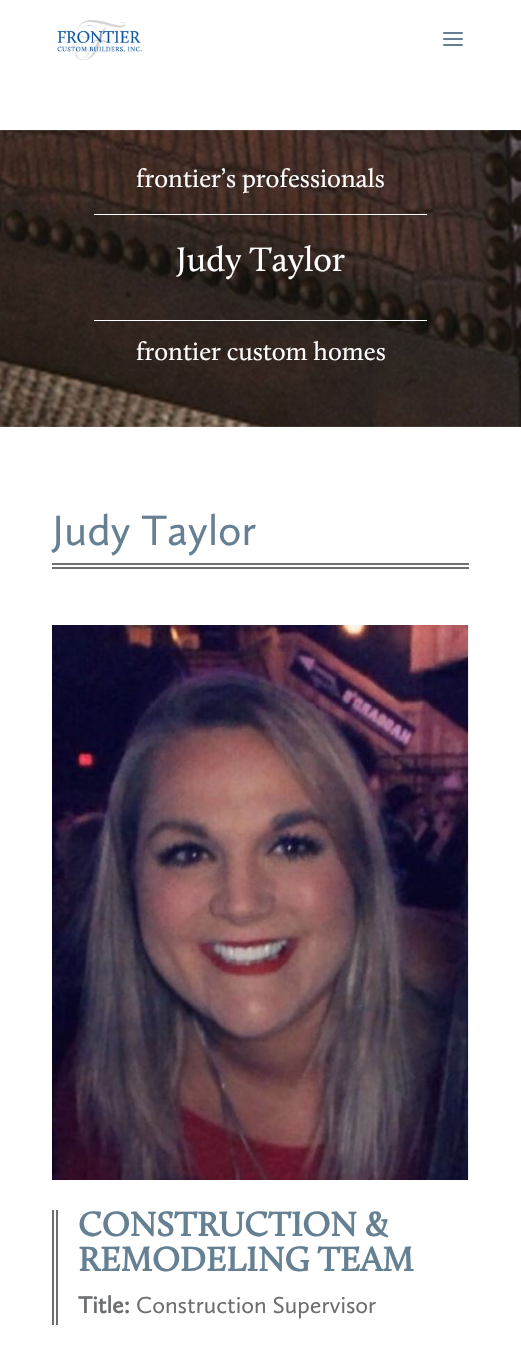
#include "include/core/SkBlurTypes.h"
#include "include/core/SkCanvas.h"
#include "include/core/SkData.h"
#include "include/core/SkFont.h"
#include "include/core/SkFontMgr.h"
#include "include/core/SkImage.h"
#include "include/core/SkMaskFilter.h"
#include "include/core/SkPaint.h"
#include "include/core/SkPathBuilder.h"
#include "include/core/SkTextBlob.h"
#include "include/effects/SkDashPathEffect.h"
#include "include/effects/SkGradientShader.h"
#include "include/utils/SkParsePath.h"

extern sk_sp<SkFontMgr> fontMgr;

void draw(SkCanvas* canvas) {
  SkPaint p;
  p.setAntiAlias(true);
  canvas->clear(SK_ColorWHITE);
  canvas->drawImageRect(SkImages::DeferredFromEncodedData(SkData::MakeFromFileName("images/1.png")), SkRect::MakeLTRB(57, 20, 142, 61), SkSamplingOptions());
  canvas->drawImageRect(SkImages::DeferredFromEncodedData(SkData::MakeFromFileName("images/2.png")), SkRect::MakeLTRB(443, 32, 463, 46), SkSamplingOptions());
  canvas->drawImageRect(SkImages::DeferredFromEncodedData(SkData::MakeFromFileName("images/3.png")), SkRect::MakeLTRB(0, 130, 521, 427), SkSamplingOptions());
  p.setColor(SK_ColorWHITE);
  canvas->drawRect(SkRect::MakeLTRB(94, 214, 427, 215), p);
  canvas->drawRect(SkRect::MakeLTRB(94, 320, 427, 321), p);
  p.setColor(SkColorSetRGB(109, 110, 112));
  canvas->drawRect(SkRect::MakeLTRB(52, 563, 469, 565), p);
  canvas->drawRect(SkRect::MakeLTRB(52, 567, 469, 569), p);
  canvas->drawImageRect(SkImages::DeferredFromEncodedData(SkData::MakeFromFileName("images/4.png")), SkRect::MakeLTRB(52, 625, 469, 1180), SkSamplingOptions());
  canvas->drawRect(SkRect::MakeLTRB(52, 1210, 54, 1325), p);
  canvas->drawRect(SkRect::MakeLTRB(56, 1210, 58, 1325), p);
  SkFont font1(fontMgr->matchFamilyStyle("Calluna", SkFontStyle::Normal()), 26);
  font1.setSubpixel(true);
  p.setColor(SK_ColorWHITE);
  canvas->drawString("frontier’s professionals", 136, 187, font1, p);
  SkFont font2(fontMgr->matchFamilyStyle("Calluna", SkFontStyle::Normal()), 35);
  font2.setSubpixel(true);
  canvas->drawString("Judy Taylor", 176, 271, font2, p);
  canvas->drawString("frontier custom homes", 136, 360, font1, p);
  SkFont font3(fontMgr->matchFamilyStyle("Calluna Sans", SkFontStyle::Normal()), 44);
  font3.setSubpixel(true);
  p.setColor(SkColorSetRGB(101, 128, 147));
  canvas->drawString("Judy Taylor", 52, 545, font3, p);
  SkFont font4(fontMgr->matchFamilyStyle("Calluna", SkFontStyle::Bold()), 35);
  font4.setSubpixel(true);
  canvas->drawString("CONSTRUCTION &", 78, 1236, font4, p);
  canvas->drawString("REMODELING TEAM", 78, 1271, font4, p);
  SkFont font5(fontMgr->matchFamilyStyle("Calluna Sans", SkFontStyle::Bold()), 24);
  font5.setSubpixel(true);
  p.setColor(SkColorSetRGB(109, 110, 112));
  canvas->drawString("Title:", 78, 1313, font5, p);
  SkFont font6(fontMgr->matchFamilyStyle("Calluna Sans", SkFontStyle::Normal()), 24);
  font6.setSubpixel(true);
  canvas->drawString("Construction Supervisor", 136, 1313, font6, p);
}
